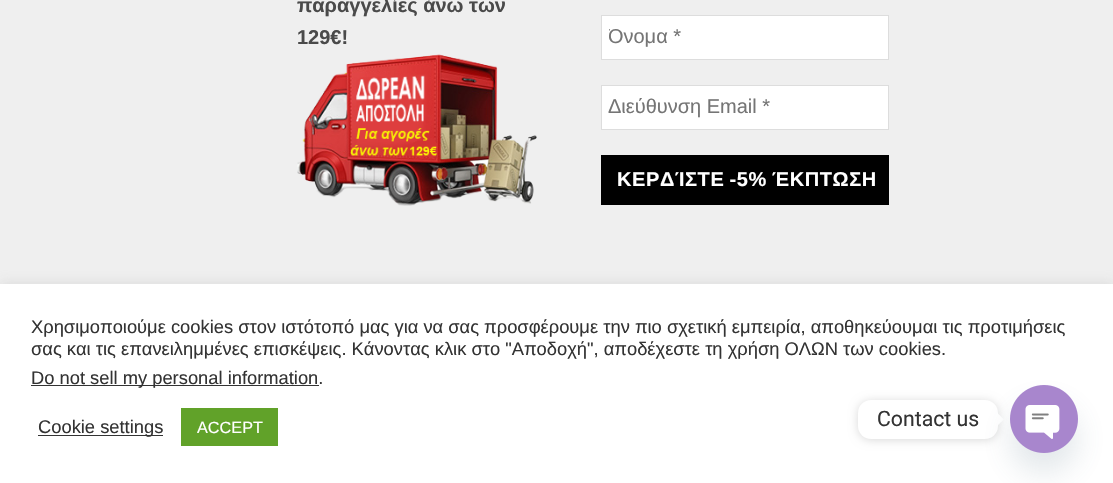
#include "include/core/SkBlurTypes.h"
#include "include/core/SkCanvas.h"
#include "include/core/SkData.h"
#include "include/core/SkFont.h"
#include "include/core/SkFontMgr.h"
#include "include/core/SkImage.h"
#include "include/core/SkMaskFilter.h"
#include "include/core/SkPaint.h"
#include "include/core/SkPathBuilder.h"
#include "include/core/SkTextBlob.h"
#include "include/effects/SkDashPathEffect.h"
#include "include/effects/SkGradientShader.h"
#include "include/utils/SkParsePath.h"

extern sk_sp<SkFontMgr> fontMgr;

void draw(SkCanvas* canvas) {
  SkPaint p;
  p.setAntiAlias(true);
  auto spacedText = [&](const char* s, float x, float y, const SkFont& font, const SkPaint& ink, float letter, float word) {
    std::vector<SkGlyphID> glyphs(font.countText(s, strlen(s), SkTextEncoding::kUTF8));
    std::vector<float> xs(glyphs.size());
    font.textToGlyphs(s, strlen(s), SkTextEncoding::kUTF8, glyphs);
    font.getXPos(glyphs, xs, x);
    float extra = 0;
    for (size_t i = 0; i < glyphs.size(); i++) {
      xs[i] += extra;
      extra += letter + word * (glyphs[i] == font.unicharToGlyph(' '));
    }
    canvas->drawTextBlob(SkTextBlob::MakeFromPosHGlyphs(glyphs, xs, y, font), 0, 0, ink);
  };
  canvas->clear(SkColorSetRGB(239, 239, 239));
  canvas->drawImageRect(SkImages::DeferredFromEncodedData(SkData::MakeFromFileName("images/1.png")), SkRect::MakeLTRB(297, 54, 537, 206), SkSamplingOptions());
  p.setColor(SK_ColorWHITE);
  canvas->drawRect(SkRect::MakeLTRB(601.5f, 15.5f, 888.5f, 59.5f), p);
  p.setStyle(SkPaint::kStroke_Style);
  p.setStrokeWidth(1);
  p.setColor(SkColorSetRGB(221, 221, 221));
  canvas->drawRect(SkRect::MakeLTRB(601.5f, 15.5f, 888.5f, 59.5f), p);
  p.setStyle(SkPaint::kFill_Style);
  p.setColor(SK_ColorWHITE);
  canvas->drawRect(SkRect::MakeLTRB(601.5f, 85.5f, 888.5f, 129.5f), p);
  p.setStyle(SkPaint::kStroke_Style);
  p.setColor(SkColorSetRGB(221, 221, 221));
  canvas->drawRect(SkRect::MakeLTRB(601.5f, 85.5f, 888.5f, 129.5f), p);
  p.setStyle(SkPaint::kFill_Style);
  p.setColor(SK_ColorBLACK);
  canvas->drawRect(SkRect::MakeLTRB(601, 155, 889, 205), p);
  p.setColor(SkColorSetARGB(77, 172, 171, 171));
  p.setMaskFilter(SkMaskFilter::MakeBlur(kNormal_SkBlurStyle, 6));
  canvas->drawRect(SkRect::MakeLTRB(0, 283, 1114, 483), p);
  p.setMaskFilter(nullptr);
  p.setColor(SK_ColorWHITE);
  canvas->drawRect(SkRect::MakeLTRB(0, 284, 1113, 483), p);
  p.setColor(SkColorSetRGB(51, 51, 51));
  canvas->drawRect(SkRect::MakeLTRB(31, 385, 319, 386), p);
  canvas->drawRect(SkRect::MakeLTRB(38, 435, 163, 436), p);
  p.setColor(SkColorSetRGB(97, 162, 41));
  canvas->drawRect(SkRect::MakeLTRB(181, 408, 278, 446), p);
  p.setColor(SkColorSetARGB(38, 0, 0, 0));
  p.setMaskFilter(SkMaskFilter::MakeBlur(kNormal_SkBlurStyle, 5));
  canvas->drawRoundRect(SkRect::MakeLTRB(858, 401, 998, 440), 13, 13, p);
  p.setMaskFilter(nullptr);
  p.setColor(SK_ColorWHITE);
  canvas->drawRoundRect(SkRect::MakeLTRB(858, 400, 998, 439), 13, 13, p);
  canvas->drawPath(SkPathBuilder().moveTo(997.5f, 425.5f).lineTo(997.5f, 413).lineTo(1004, 419.5f).close().detach(), p);
  p.setColor(SkColorSetARGB(41, 73, 104, 126));
  p.setMaskFilter(SkMaskFilter::MakeBlur(kNormal_SkBlurStyle, 15));
  canvas->drawRoundRect(SkRect::MakeLTRB(1010, 405, 1078, 473), 34, 34, p);
  p.setMaskFilter(nullptr);
  canvas->drawImageRect(SkImages::DeferredFromEncodedData(SkData::MakeFromFileName("images/2.png")), SkRect::MakeLTRB(1010, 385, 1078, 453), SkSamplingOptions());
  SkFont font1(fontMgr->matchFamilyStyle("Liberation Sans", SkFontStyle::Bold()), 20);
  font1.setSubpixel(true);
  p.setColor(SkColorSetRGB(74, 74, 74));
  canvas->drawString("παραγγελίες άνω των", 297, 12, font1, p);
  canvas->drawString("129€!", 297, 44, font1, p);
  canvas->save();
  canvas->clipRect(SkRect::MakeLTRB(609, 26, 881, 49));
  SkFont font2(fontMgr->matchFamilyStyle("Liberation Sans", SkFontStyle::Normal()), 20);
  font2.setSubpixel(true);
  p.setColor(SkColorSetRGB(117, 117, 117));
  canvas->drawString("Όνομα *", 608, 43, font2, p);
  canvas->restore();
  canvas->drawString("Διεύθυνση Email *", 608, 113, font2, p);
  p.setColor(SK_ColorWHITE);
  spacedText("ΚΕΡΔΊΣΤΕ -5% ΈΚΠΤΩΣΗ", 617, 186, font1, p, 0.6f, -1);
  SkFont font3(fontMgr->matchFamilyStyle("Liberation Sans", SkFontStyle::Normal()), 18.33f);
  font3.setSubpixel(true);
  p.setColor(SkColorSetRGB(51, 51, 51));
  canvas->drawString("Χρησιμοποιούμε cookies στον ιστότοπό μας για να σας προσφέρουμε την πιο σχετική εμπειρία, αποθηκεύουμαι τις προτιμήσεις", 31, 333, font3, p);
  canvas->drawString("σας και τις επανειλημμένες επισκέψεις. Κάνοντας κλικ στο \"Αποδοχή\", αποδέχεστε τη χρήση ΟΛΩΝ των cookies.", 31, 355, font3, p);
  canvas->drawString("Do not sell my personal information.", 31, 384, font3, p);
  canvas->drawString("Cookie settings", 38, 433, font3, p);
  SkFont font4(fontMgr->matchFamilyStyle("Liberation Sans", SkFontStyle::Normal()), 16.25f);
  font4.setSubpixel(true);
  p.setColor(SK_ColorWHITE);
  canvas->drawString("ACCEPT", 197, 433, font4, p);
  SkFont font5(fontMgr->matchFamilyStyle("Roboto", SkFontStyle::Normal()), 21.25f);
  font5.setSubpixel(true);
  p.setColor(SkColorSetRGB(51, 51, 51));
  canvas->drawString("Contact us", 877, 426, font5, p);
}
